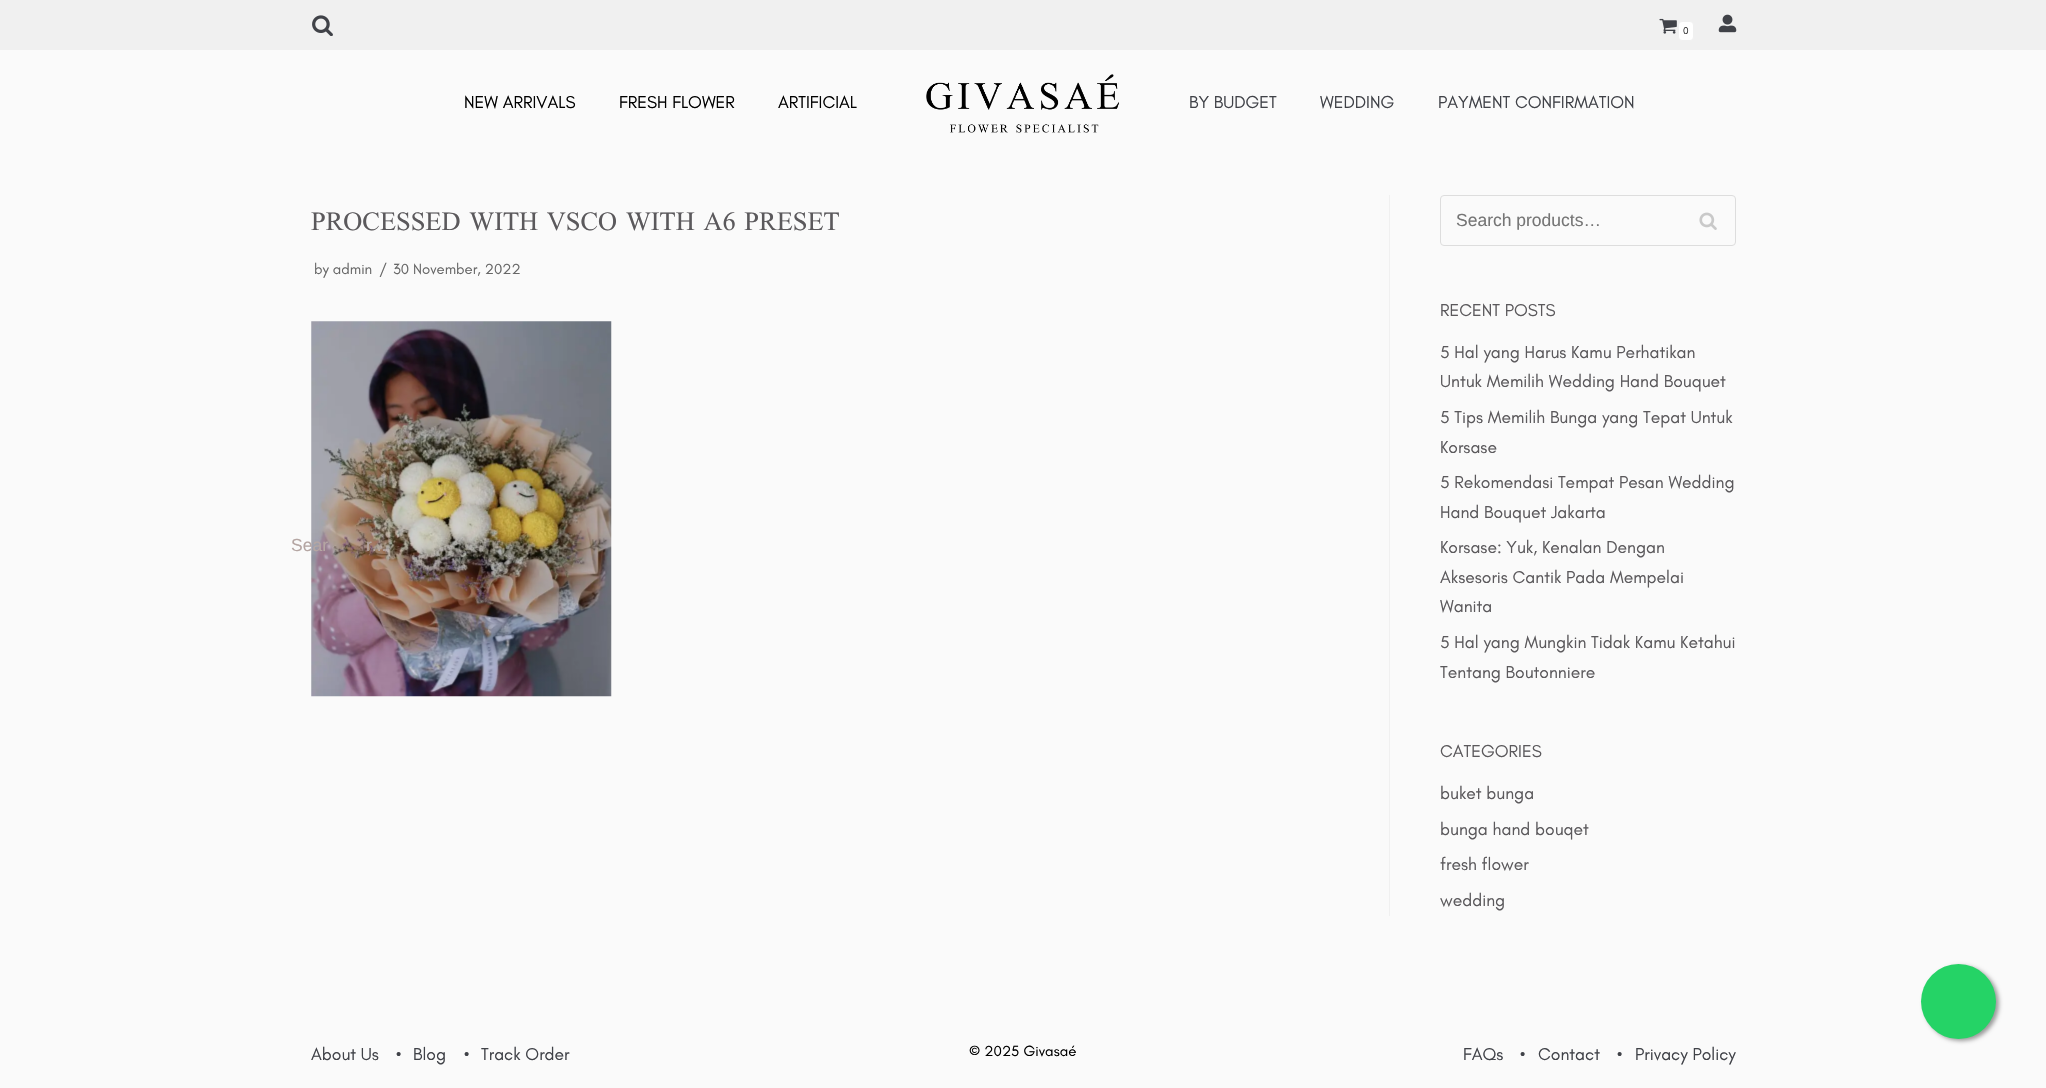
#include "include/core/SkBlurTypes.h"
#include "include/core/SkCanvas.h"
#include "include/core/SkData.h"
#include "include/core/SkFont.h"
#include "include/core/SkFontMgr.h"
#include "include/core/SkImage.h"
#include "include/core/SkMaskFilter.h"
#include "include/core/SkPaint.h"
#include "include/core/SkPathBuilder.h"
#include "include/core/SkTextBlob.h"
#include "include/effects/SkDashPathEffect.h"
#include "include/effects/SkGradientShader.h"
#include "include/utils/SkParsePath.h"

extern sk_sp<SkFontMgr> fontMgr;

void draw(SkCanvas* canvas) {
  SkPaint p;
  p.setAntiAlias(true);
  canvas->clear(SkColorSetRGB(250, 250, 250));
  p.setColor(SkColorSetRGB(240, 240, 240));
  canvas->drawRect(SkRect::MakeLTRB(0, 0, 2046, 50), p);
  canvas->drawImageRect(SkImages::DeferredFromEncodedData(SkData::MakeFromFileName("images/1.png")), SkRect::MakeLTRB(1659, 18, 1677, 34), SkSamplingOptions());
  p.setColor(SK_ColorWHITE);
  canvas->drawRoundRect(SkRect::MakeLTRB(1678.5f, 21.5f, 1693.5f, 40.5f), 3.5f, 3.5f, p);
  p.setStyle(SkPaint::kStroke_Style);
  p.setStrokeWidth(1);
  p.setColor(SkColorSetRGB(240, 240, 240));
  canvas->drawRoundRect(SkRect::MakeLTRB(1678.5f, 21.5f, 1693.5f, 40.5f), 3.5f, 3.5f, p);
  canvas->drawImageRect(SkImages::DeferredFromEncodedData(SkData::MakeFromFileName("images/2.png")), SkRect::MakeLTRB(1718, 14, 1737, 33), SkSamplingOptions());
  canvas->drawImageRect(SkImages::DeferredFromEncodedData(SkData::MakeFromFileName("images/3.png")), SkRect::MakeLTRB(312, 15, 333, 36), SkSamplingOptions());
  canvas->drawImageRect(SkImages::DeferredFromEncodedData(SkData::MakeFromFileName("images/4.png")), SkRect::MakeLTRB(926, 74, 1119, 133), SkSamplingOptions());
  canvas->drawImageRect(SkImages::DeferredFromEncodedData(SkData::MakeFromFileName("images/5.png")), SkRect::MakeLTRB(311, 321, 612, 697), SkSamplingOptions());
  p.setStyle(SkPaint::kFill_Style);
  canvas->drawRect(SkRect::MakeLTRB(1389, 195, 1390, 916), p);
  p.setStyle(SkPaint::kStroke_Style);
  p.setColor(SkColorSetRGB(221, 221, 221));
  canvas->drawRoundRect(SkRect::MakeLTRB(1440.5f, 195.5f, 1735.5f, 245.5f), 3.5f, 3.5f, p);
  canvas->drawImageRect(SkImages::DeferredFromEncodedData(SkData::MakeFromFileName("images/6.png")), SkRect::MakeLTRB(1699, 212, 1717, 230), SkSamplingOptions());
  p.setStyle(SkPaint::kFill_Style);
  p.setColor(SkColorSetRGB(153, 153, 153));
  p.setMaskFilter(SkMaskFilter::MakeBlur(kNormal_SkBlurStyle, 2));
  canvas->drawRoundRect(SkRect::MakeLTRB(1924, 966, 1999, 1041), 37.5f, 37.5f, p);
  p.setMaskFilter(nullptr);
  p.setColor(SkColorSetRGB(37, 211, 102));
  canvas->drawCircle(1958.5f, 1001.5f, 37.5f, p);
  SkFont font1(fontMgr->matchFamilyStyle("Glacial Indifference", SkFontStyle::Normal()), 10);
  font1.setSubpixel(true);
  p.setColor(SkColorSetRGB(51, 51, 51));
  canvas->drawString("0", 1683, 34, font1, p);
  SkFont font2(fontMgr->matchFamilyStyle("Liberation Sans", SkFontStyle::Normal()), 17.5f);
  font2.setSubpixel(true);
  p.setColor(SkColorSetRGB(181, 166, 163));
  canvas->drawString("Sear", 291, 551, font2, p);
  canvas->drawString("r...", 366, 551, font2, p);
  SkFont font3(fontMgr->matchFamilyStyle("Glacial Indifference", SkFontStyle::Normal()), 17.5f);
  font3.setSubpixel(true);
  p.setColor(SK_ColorBLACK);
  canvas->drawString("NEW ARRIVALS", 464, 108, font3, p);
  canvas->drawString("FRESH FLOWER", 619, 108, font3, p);
  canvas->drawString("ARTIFICIAL", 778, 108, font3, p);
  p.setColor(SkColorSetRGB(64, 66, 72));
  canvas->drawString("BY BUDGET", 1189, 108, font3, p);
  canvas->drawString("WEDDING", 1320, 108, font3, p);
  canvas->drawString("PAYMENT CONFIRMATION", 1438, 108, font3, p);
  SkFont font4(fontMgr->matchFamilyStyle("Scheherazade", SkFontStyle::Normal()), 35);
  font4.setSubpixel(true);
  p.setColor(SkColorSetRGB(91, 89, 92));
  canvas->drawString("PROCESSED WITH VSCO WITH A6 PRESET", 311, 230, font4, p);
  SkFont font5(fontMgr->matchFamilyStyle("Glacial Indifference", SkFontStyle::Normal()), 14.9f);
  font5.setSubpixel(true);
  p.setColor(SkColorSetRGB(103, 103, 103));
  canvas->drawString("by admin", 314, 274, font5, p);
  canvas->drawString("/", 379, 274, font5, p);
  canvas->drawString("30 November, 2022", 393, 274, font5, p);
  p.setColor(SkColorSetRGB(117, 117, 117));
  canvas->drawString("Search products…", 1456, 226, font2, p);
  p.setColor(SkColorSetRGB(91, 89, 92));
  canvas->drawString("RECENT POSTS", 1440, 316, font3, p);
  canvas->drawString("5 Hal yang Harus Kamu Perhatikan", 1440, 358, font3, p);
  canvas->drawString("Untuk Memilih Wedding Hand Bouquet", 1440, 387, font3, p);
  canvas->drawString("5 Tips Memilih Bunga yang Tepat Untuk", 1440, 423, font3, p);
  canvas->drawString("Korsase", 1440, 453, font3, p);
  canvas->drawString("5 Rekomendasi Tempat Pesan Wedding", 1440, 488, font3, p);
  canvas->drawString("Hand Bouquet Jakarta", 1440, 518, font3, p);
  canvas->drawString("Korsase: Yuk, Kenalan Dengan", 1440, 553, font3, p);
  canvas->drawString("Aksesoris Cantik Pada Mempelai", 1440, 583, font3, p);
  canvas->drawString("Wanita", 1440, 612, font3, p);
  canvas->drawString("5 Hal yang Mungkin Tidak Kamu Ketahui", 1440, 648, font3, p);
  canvas->drawString("Tentang Boutonniere", 1440, 678, font3, p);
  canvas->drawString("CATEGORIES", 1440, 757, font3, p);
  canvas->drawString("buket bunga", 1440, 799, font3, p);
  canvas->drawString("bunga hand bouqet", 1440, 835, font3, p);
  canvas->drawString("fresh flower", 1440, 870, font3, p);
  canvas->drawString("wedding", 1440, 906, font3, p);
  p.setColor(SkColorSetRGB(64, 66, 72));
  canvas->drawString("About Us", 311, 1060, font3, p);
  canvas->drawString("•", 396, 1060, font3, p);
  canvas->drawString("Blog", 413, 1060, font3, p);
  canvas->drawString("•", 464, 1060, font3, p);
  canvas->drawString("Track Order", 481, 1060, font3, p);
  SkFont font6(fontMgr->matchFamilyStyle("Glacial Indifference", SkFontStyle::Normal()), 15);
  font6.setSubpixel(true);
  p.setColor(SK_ColorBLACK);
  canvas->drawString("© 2025 Givasaé", 969, 1056, font6, p);
  p.setColor(SkColorSetRGB(64, 66, 72));
  canvas->drawString("FAQs", 1463, 1060, font3, p);
  canvas->drawString("•", 1520, 1060, font3, p);
  canvas->drawString("Contact", 1538, 1060, font3, p);
  canvas->drawString("•", 1617, 1060, font3, p);
  canvas->drawString("Privacy Policy", 1635, 1060, font3, p);
}
